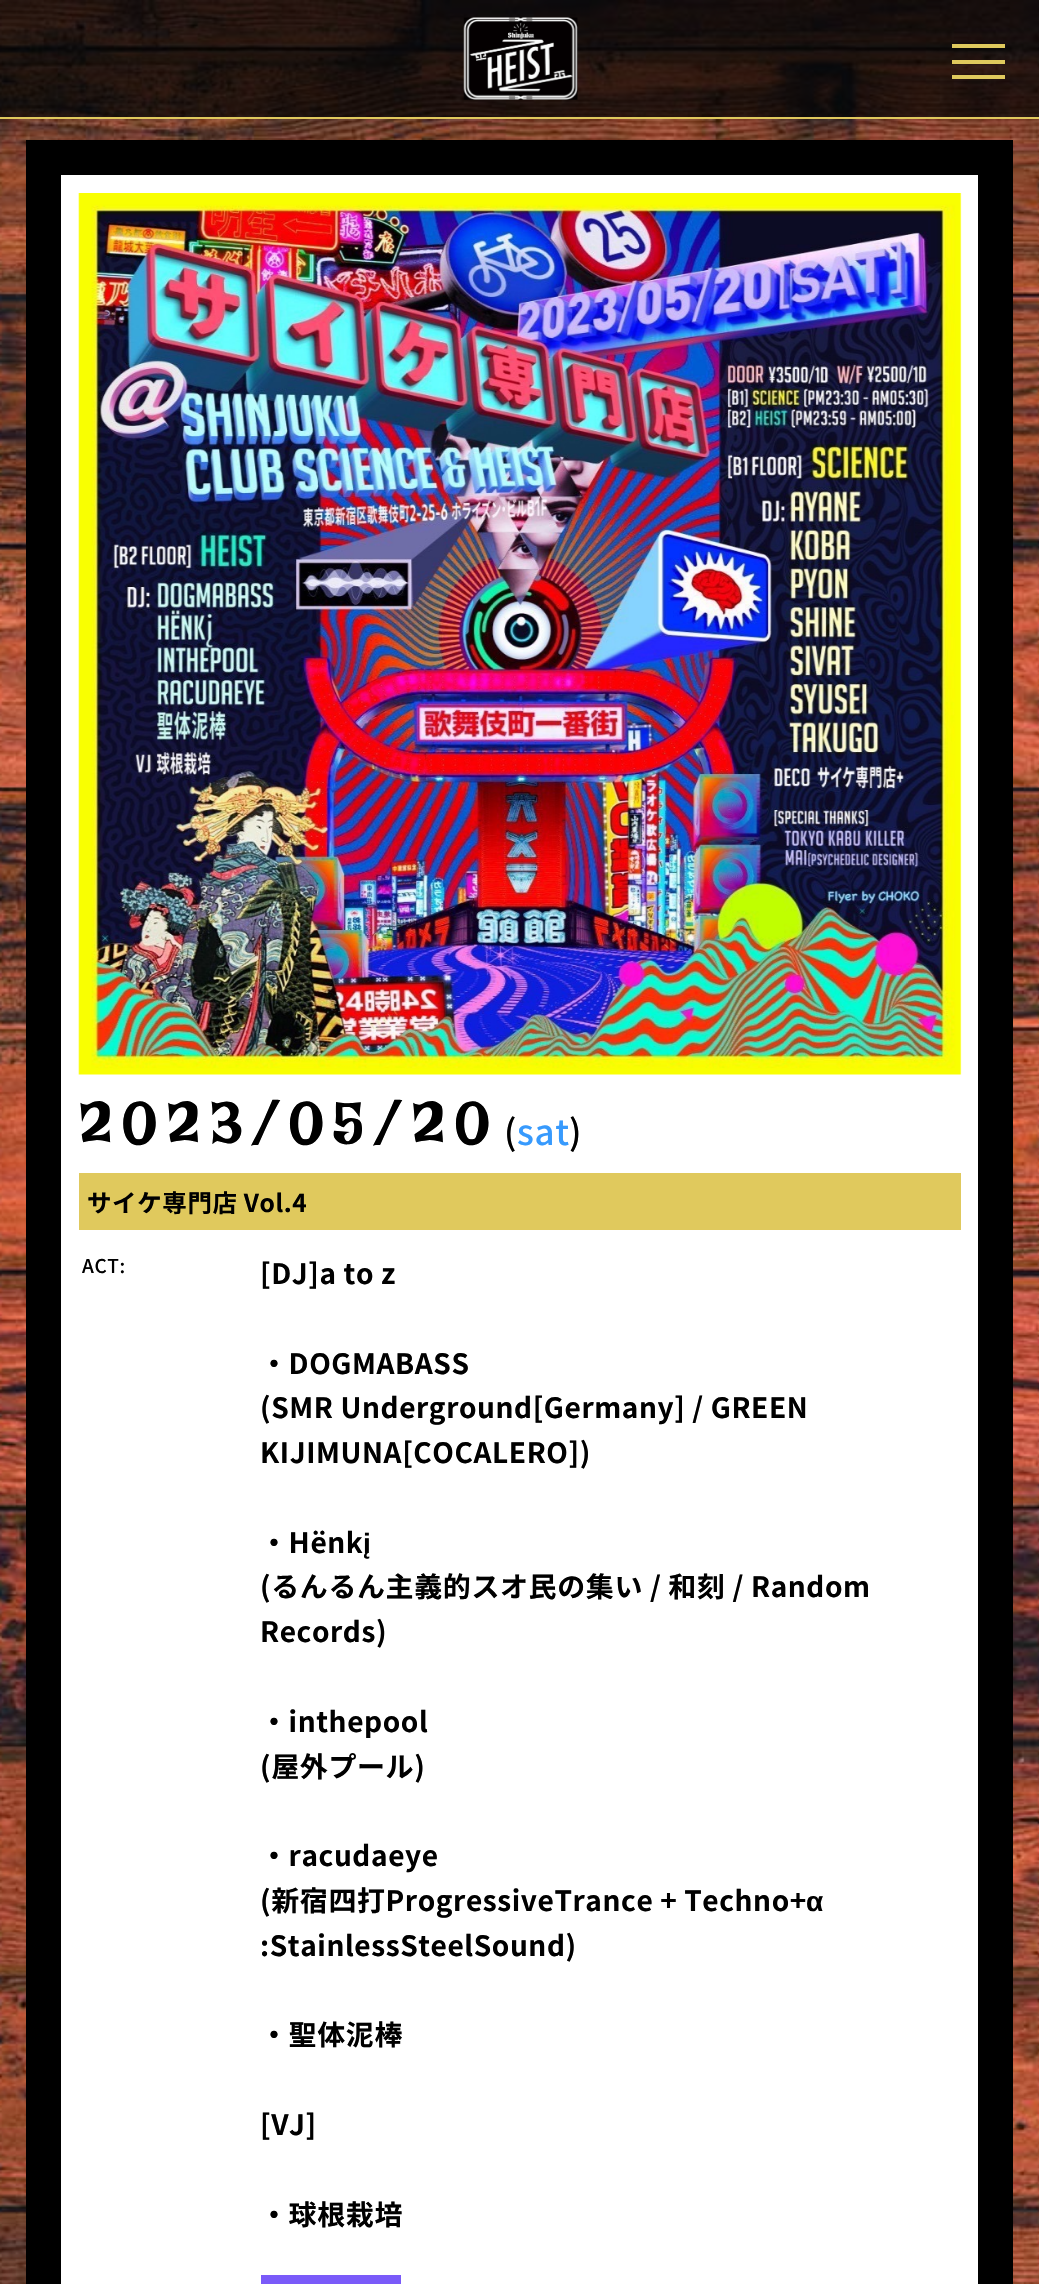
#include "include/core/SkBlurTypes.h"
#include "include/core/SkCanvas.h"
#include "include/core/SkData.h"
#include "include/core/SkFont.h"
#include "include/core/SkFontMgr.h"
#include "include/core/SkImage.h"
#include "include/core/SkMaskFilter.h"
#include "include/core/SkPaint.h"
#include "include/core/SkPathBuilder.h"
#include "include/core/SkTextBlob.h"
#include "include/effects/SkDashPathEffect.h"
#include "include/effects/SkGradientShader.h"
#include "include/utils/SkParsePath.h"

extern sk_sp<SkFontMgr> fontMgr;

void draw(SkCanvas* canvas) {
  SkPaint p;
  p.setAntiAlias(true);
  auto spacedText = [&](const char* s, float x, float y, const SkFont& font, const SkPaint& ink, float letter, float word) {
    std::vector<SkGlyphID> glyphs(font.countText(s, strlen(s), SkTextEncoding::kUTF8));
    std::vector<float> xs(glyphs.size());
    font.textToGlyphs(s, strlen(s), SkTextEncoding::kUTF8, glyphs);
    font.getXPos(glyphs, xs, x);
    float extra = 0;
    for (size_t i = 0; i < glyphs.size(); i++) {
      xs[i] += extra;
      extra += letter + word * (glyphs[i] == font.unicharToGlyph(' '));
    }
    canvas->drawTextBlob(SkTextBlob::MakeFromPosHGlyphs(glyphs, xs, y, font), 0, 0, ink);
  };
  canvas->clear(SK_ColorWHITE);
  canvas->drawImageRect(SkImages::DeferredFromEncodedData(SkData::MakeFromFileName("images/1.png")), SkRect::MakeLTRB(0, 0, 1039, 2284), SkSamplingOptions());
  p.setColor(SkColorSetARGB(179, 0, 0, 0));
  canvas->drawRect(SkRect::MakeLTRB(0, 0, 1039, 117), p);
  p.setColor(SkColorSetRGB(224, 201, 93));
  canvas->drawRect(SkRect::MakeLTRB(0, 117, 1039, 119), p);
  canvas->drawImageRect(SkImages::DeferredFromEncodedData(SkData::MakeFromFileName("images/2.png")), SkRect::MakeLTRB(463, 17, 578, 100), SkSamplingOptions());
  p.setColor(SkColorSetRGB(223, 201, 93));
  canvas->drawRect(SkRect::MakeLTRB(952, 44, 1005, 48), p);
  canvas->drawRect(SkRect::MakeLTRB(952, 60, 1005, 64), p);
  canvas->drawRect(SkRect::MakeLTRB(952, 75, 1005, 79), p);
  p.setColor(SK_ColorBLACK);
  canvas->drawRect(SkRect::MakeLTRB(26, 140, 1013, 2284), p);
  p.setColor(SK_ColorWHITE);
  canvas->drawRect(SkRect::MakeLTRB(61, 175, 978, 2284), p);
  canvas->drawImageRect(SkImages::DeferredFromEncodedData(SkData::MakeFromFileName("images/3.png")), SkRect::MakeLTRB(78, 193, 962, 1075), SkSamplingOptions());
  p.setColor(SkColorSetRGB(224, 201, 93));
  canvas->drawRect(SkRect::MakeLTRB(79, 1173, 961, 1230), p);
  p.setColor(SkColorSetRGB(122, 90, 249));
  canvas->drawRect(SkRect::MakeLTRB(261, 2275, 401, 2284), p);
  SkFont font1(fontMgr->matchFamilyStyle("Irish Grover", SkFontStyle::Normal()), 61.25f);
  font1.setSubpixel(true);
  p.setColor(SK_ColorBLACK);
  spacedText("2023/05/20", 78, 1145, font1, p, 8.75f, 0);
  SkFont font2(fontMgr->matchFamilyStyle("Noto Sans JP", SkFontStyle(500, SkFontStyle::kNormal_Width, SkFontStyle::kUpright_Slant)), 35);
  font2.setSubpixel(true);
  spacedText("(", 504, 1145, font2, p, 0.6f, 0);
  p.setColor(SkColorSetRGB(55, 154, 253));
  spacedText("sat", 517, 1145, font2, p, 0.6f, 0);
  p.setColor(SK_ColorBLACK);
  spacedText(")", 569, 1145, font2, p, 0.6f, 0);
  SkFont font3(fontMgr->matchFamilyStyle("Noto Sans JP", SkFontStyle::Bold()), 24.5f);
  font3.setSubpixel(true);
  spacedText("サイケ専門店 Vol.4", 87, 1212, font3, p, 0.6f, 0);
  SkFont font4(fontMgr->matchFamilyStyle("Noto Sans JP", SkFontStyle(500, SkFontStyle::kNormal_Width, SkFontStyle::kUpright_Slant)), 19);
  font4.setSubpixel(true);
  spacedText("ACT:", 82, 1273, font4, p, 0.6f, 0);
  SkFont font5(fontMgr->matchFamilyStyle("Noto Sans JP", SkFontStyle::Bold()), 28);
  font5.setSubpixel(true);
  spacedText("[DJ]a to z", 260, 1284, font5, p, 0.6f, 0);
  spacedText("・DOGMABASS", 260, 1374, font5, p, 0.6f, 0);
  spacedText("(SMR Underground[Germany] / GREEN", 260, 1418, font5, p, 0.6f, 0);
  spacedText("KIJIMUNA[COCALERO])", 260, 1463, font5, p, 0.6f, 0);
  spacedText("・Hënk", 260, 1553, font5, p, 0.6f, 0);
  SkFont font6(fontMgr->matchFamilyStyle("Liberation Sans", SkFontStyle::Bold()), 28);
  font6.setSubpixel(true);
  spacedText("į", 363, 1553, font6, p, 0.6f, 0);
  spacedText("(るんるん主義的スオ民の集い / 和刻 / Random", 260, 1597, font5, p, 0.6f, 0);
  spacedText("Records)", 260, 1642, font5, p, 0.6f, 0);
  spacedText("・inthepool", 260, 1732, font5, p, 0.6f, 0);
  spacedText("(屋外プール)", 260, 1777, font5, p, 0.6f, 0);
  spacedText("・racudaeye", 260, 1866, font5, p, 0.6f, 0);
  spacedText("(新宿四打ProgressiveTrance + Techno+", 260, 1911, font5, p, 0.6f, 0);
  spacedText("α", 806, 1911, font6, p, 0.6f, 0);
  spacedText(":StainlessSteelSound)", 260, 1956, font5, p, 0.6f, 0);
  spacedText("・聖体泥棒", 260, 2045, font5, p, 0.6f, 0);
  spacedText("[VJ]", 260, 2135, font5, p, 0.6f, 0);
  spacedText("・球根栽培", 260, 2225, font5, p, 0.6f, 0);
}
